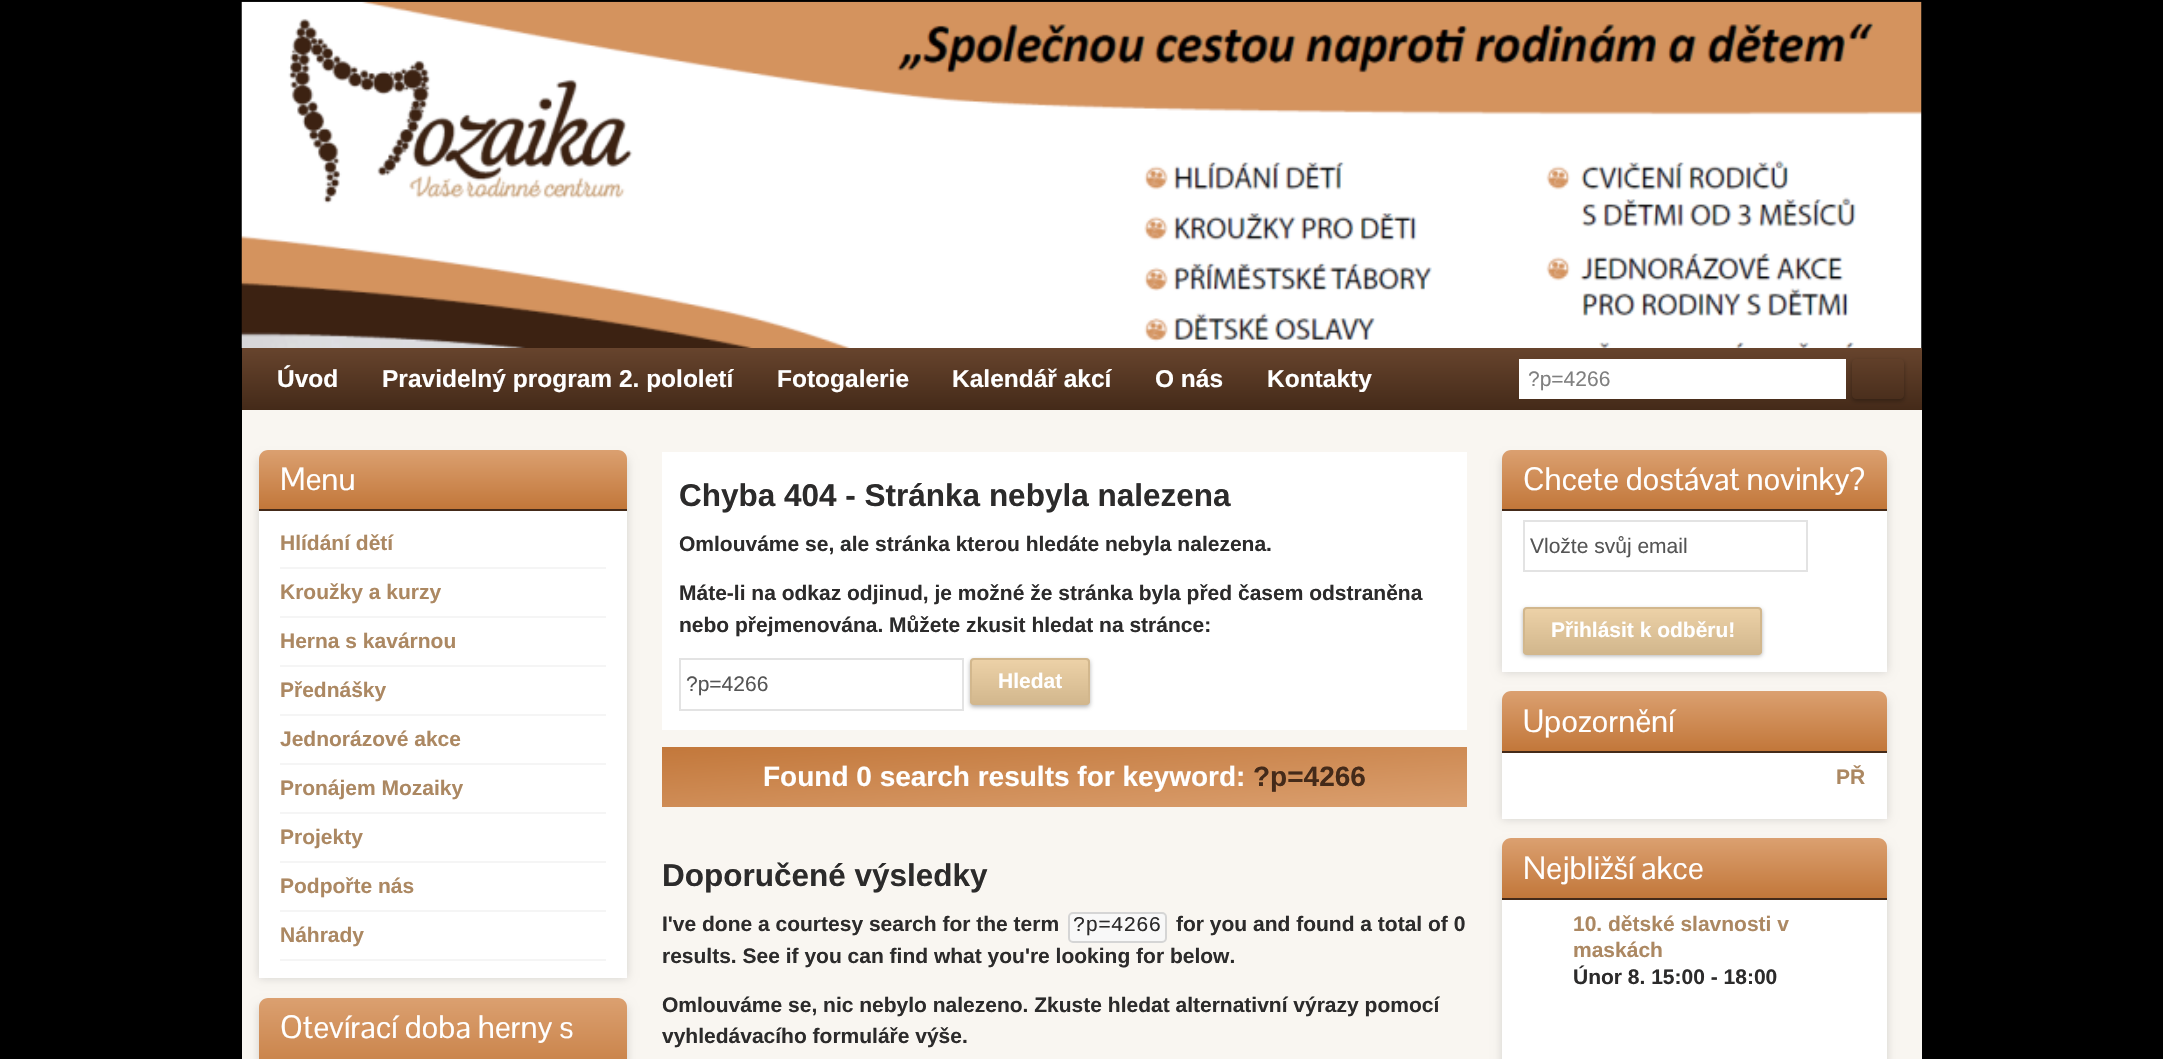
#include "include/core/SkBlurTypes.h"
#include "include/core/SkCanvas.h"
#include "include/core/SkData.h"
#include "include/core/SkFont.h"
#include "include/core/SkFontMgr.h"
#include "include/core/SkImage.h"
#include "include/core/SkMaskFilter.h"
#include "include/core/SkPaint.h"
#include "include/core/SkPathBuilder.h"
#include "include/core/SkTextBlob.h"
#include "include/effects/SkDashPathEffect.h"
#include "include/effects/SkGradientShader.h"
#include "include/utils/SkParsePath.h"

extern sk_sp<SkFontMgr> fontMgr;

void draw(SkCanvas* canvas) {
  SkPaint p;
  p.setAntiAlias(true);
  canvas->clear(SK_ColorBLACK);
  canvas->drawImageRect(SkImages::DeferredFromEncodedData(SkData::MakeFromFileName("images/1.png")), SkRect::MakeLTRB(241, 1, 1922, 348), SkSamplingOptions());
  {
    const SkColor colors[] = {SkColorSetRGB(103, 68, 45), SkColorSetRGB(68, 42, 25)};
    const float stops[] = {0, 1};
    const SkPoint ends[] = {{1082, 348}, {1082, 410}};
    p.setShader(SkGradientShader::MakeLinear(ends, colors, stops, 2, SkTileMode::kClamp));
    p.setAlpha(255);
  }
  canvas->drawRect(SkRect::MakeLTRB(242, 348, 1922, 410), p);
  p.setShader(nullptr);
  p.setColor(SK_ColorWHITE);
  canvas->drawRect(SkRect::MakeLTRB(1519, 359, 1846, 399), p);
  canvas->save();
  canvas->clipPath(SkPathBuilder(SkPathFillType::kEvenOdd).moveTo(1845, 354).lineTo(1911, 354).lineTo(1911, 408).lineTo(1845, 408).close().moveTo(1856, 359).lineTo(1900, 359).cubicTo(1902, 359, 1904, 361, 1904, 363).lineTo(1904, 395).cubicTo(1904, 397, 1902, 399, 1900, 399).lineTo(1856, 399).cubicTo(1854, 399, 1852, 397, 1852, 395).lineTo(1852, 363).cubicTo(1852, 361, 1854, 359, 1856, 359).close().detach(), true);
  p.setColor(SkColorSetARGB(77, 0, 0, 0));
  p.setMaskFilter(SkMaskFilter::MakeBlur(kNormal_SkBlurStyle, 2));
  canvas->drawRoundRect(SkRect::MakeLTRB(1852, 361, 1904, 401), 4, 4, p);
  p.setMaskFilter(nullptr);
  canvas->restore();
  p.setColor(SkColorSetRGB(249, 246, 241));
  canvas->drawRect(SkRect::MakeLTRB(242, 410, 1922, 1059), p);
  p.setColor(SkColorSetARGB(38, 0, 0, 0));
  p.setMaskFilter(SkMaskFilter::MakeBlur(kNormal_SkBlurStyle, 4.5f));
  canvas->drawRect(SkRect::MakeLTRB(259, 459, 627, 978), p);
  p.setMaskFilter(nullptr);
  p.setColor(SK_ColorWHITE);
  canvas->drawRect(SkRect::MakeLTRB(259, 511, 627, 978), p);
  {
    const SkColor colors[] = {SkColorSetRGB(219, 160, 112), SkColorSetRGB(194, 119, 58)};
    const float stops[] = {0, 1};
    const SkPoint ends[] = {{443, 450}, {443, 509}};
    p.setShader(SkGradientShader::MakeLinear(ends, colors, stops, 2, SkTileMode::kClamp));
    p.setAlpha(255);
  }
  canvas->drawPath(SkPathBuilder().moveTo(268, 450).lineTo(618, 450).cubicTo(623, 450, 627, 454, 627, 459).lineTo(627, 509).lineTo(259, 509).lineTo(259, 459).cubicTo(259, 454, 263, 450, 268, 450).close().detach(), p);
  p.setShader(nullptr);
  p.setColor(SkColorSetRGB(68, 42, 25));
  canvas->drawRect(SkRect::MakeLTRB(259, 509, 627, 511), p);
  p.setColor(SkColorSetRGB(245, 245, 245));
  canvas->drawRect(SkRect::MakeLTRB(280, 567, 606, 569), p);
  canvas->drawRect(SkRect::MakeLTRB(280, 616, 606, 618), p);
  canvas->drawRect(SkRect::MakeLTRB(280, 665, 606, 667), p);
  canvas->drawRect(SkRect::MakeLTRB(280, 714, 606, 716), p);
  canvas->drawRect(SkRect::MakeLTRB(280, 763, 606, 765), p);
  canvas->drawRect(SkRect::MakeLTRB(280, 812, 606, 814), p);
  canvas->drawRect(SkRect::MakeLTRB(280, 861, 606, 863), p);
  canvas->drawRect(SkRect::MakeLTRB(280, 910, 606, 912), p);
  canvas->drawRect(SkRect::MakeLTRB(280, 959, 606, 961), p);
  p.setColor(SkColorSetARGB(38, 0, 0, 0));
  p.setMaskFilter(SkMaskFilter::MakeBlur(kNormal_SkBlurStyle, 4.5f));
  canvas->drawRect(SkRect::MakeLTRB(259, 1006, 627, 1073), p);
  p.setMaskFilter(nullptr);
  {
    const SkColor colors[] = {SkColorSetRGB(219, 160, 112), SkColorSetRGB(194, 119, 58)};
    const float stops[] = {0, 1};
    const SkPoint ends[] = {{443, 998}, {443, 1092}};
    p.setShader(SkGradientShader::MakeLinear(ends, colors, stops, 2, SkTileMode::kClamp));
    p.setAlpha(255);
  }
  canvas->drawPath(SkPathBuilder().moveTo(268, 998).lineTo(618, 998).cubicTo(623, 998, 627, 1002, 627, 1007).lineTo(627, 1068).lineTo(259, 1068).lineTo(259, 1007).cubicTo(259, 1002, 263, 998, 268, 998).close().detach(), p);
  p.setShader(nullptr);
  p.setColor(SK_ColorWHITE);
  canvas->drawRect(SkRect::MakeLTRB(662, 452, 1467, 730), p);
  p.setStyle(SkPaint::kStroke_Style);
  p.setStrokeWidth(2);
  p.setColor(SkColorSetRGB(227, 227, 227));
  canvas->drawRect(SkRect::MakeLTRB(680, 659, 963, 710), p);
  p.setStyle(SkPaint::kFill_Style);
  p.setColor(SkColorSetARGB(77, 0, 0, 0));
  p.setMaskFilter(SkMaskFilter::MakeBlur(kNormal_SkBlurStyle, 2));
  canvas->drawRoundRect(SkRect::MakeLTRB(970, 660, 1090, 707), 4, 4, p);
  p.setMaskFilter(nullptr);
  canvas->save();
  canvas->clipPath(SkPathBuilder().moveTo(974, 658).lineTo(1086, 658).cubicTo(1088, 658, 1090, 660, 1090, 662).lineTo(1090, 701).cubicTo(1090, 703, 1088, 705, 1086, 705).lineTo(974, 705).cubicTo(972, 705, 970, 703, 970, 701).lineTo(970, 662).cubicTo(970, 660, 972, 658, 974, 658).close().detach(), true);
  {
    const SkColor colors[] = {SkColorSetRGB(236, 209, 167), SkColorSetRGB(210, 183, 141)};
    const float stops[] = {0, 1};
    const SkPoint ends[] = {{1030, 660}, {1030, 704}};
    p.setShader(SkGradientShader::MakeLinear(ends, colors, stops, 2, SkTileMode::kClamp));
    p.setAlpha(255);
  }
  canvas->drawRect(SkRect::MakeLTRB(970, 660, 1090, 704), p);
  canvas->restore();
  p.setStyle(SkPaint::kStroke_Style);
  p.setShader(nullptr);
  p.setColor(SkColorSetRGB(210, 183, 141));
  canvas->drawRoundRect(SkRect::MakeLTRB(971, 659, 1089, 704), 3, 3, p);
  p.setStyle(SkPaint::kFill_Style);
  {
    const SkColor colors[] = {SkColorSetRGB(194, 119, 58), SkColorSetRGB(219, 160, 112)};
    const float stops[] = {0, 1};
    const SkPoint ends[] = {{1060, 718}, {1068, 836}};
    p.setShader(SkGradientShader::MakeLinear(ends, colors, stops, 2, SkTileMode::kClamp));
    p.setAlpha(255);
  }
  canvas->drawRect(SkRect::MakeLTRB(662, 747, 1467, 807), p);
  p.setShader(nullptr);
  p.setColor(SkColorSetRGB(248, 248, 248));
  canvas->drawRoundRect(SkRect::MakeLTRB(1069, 913, 1166, 942), 4, 4, p);
  p.setStyle(SkPaint::kStroke_Style);
  p.setColor(SkColorSetRGB(213, 213, 213));
  canvas->drawRoundRect(SkRect::MakeLTRB(1069, 913, 1166, 942), 4, 4, p);
  p.setStyle(SkPaint::kFill_Style);
  p.setColor(SkColorSetARGB(38, 0, 0, 0));
  p.setMaskFilter(SkMaskFilter::MakeBlur(kNormal_SkBlurStyle, 4.5f));
  canvas->drawRect(SkRect::MakeLTRB(1502, 459, 1887, 672), p);
  p.setMaskFilter(nullptr);
  p.setColor(SK_ColorWHITE);
  canvas->drawRect(SkRect::MakeLTRB(1502, 511, 1887, 672), p);
  {
    const SkColor colors[] = {SkColorSetRGB(219, 160, 112), SkColorSetRGB(194, 119, 58)};
    const float stops[] = {0, 1};
    const SkPoint ends[] = {{1694, 450}, {1694, 509}};
    p.setShader(SkGradientShader::MakeLinear(ends, colors, stops, 2, SkTileMode::kClamp));
    p.setAlpha(255);
  }
  canvas->drawPath(SkPathBuilder().moveTo(1511, 450).lineTo(1878, 450).cubicTo(1883, 450, 1887, 454, 1887, 459).lineTo(1887, 509).lineTo(1502, 509).lineTo(1502, 459).cubicTo(1502, 454, 1506, 450, 1511, 450).close().detach(), p);
  p.setShader(nullptr);
  p.setColor(SkColorSetRGB(68, 42, 25));
  canvas->drawRect(SkRect::MakeLTRB(1502, 509, 1887, 511), p);
  p.setStyle(SkPaint::kStroke_Style);
  p.setColor(SkColorSetRGB(227, 227, 227));
  canvas->drawRect(SkRect::MakeLTRB(1524, 521, 1807, 571), p);
  p.setStyle(SkPaint::kFill_Style);
  p.setColor(SkColorSetARGB(77, 0, 0, 0));
  p.setMaskFilter(SkMaskFilter::MakeBlur(kNormal_SkBlurStyle, 2));
  canvas->drawRoundRect(SkRect::MakeLTRB(1523, 609, 1762, 656), 4, 4, p);
  p.setMaskFilter(nullptr);
  canvas->save();
  canvas->clipPath(SkPathBuilder().moveTo(1527, 607).lineTo(1758, 607).cubicTo(1760, 607, 1762, 609, 1762, 611).lineTo(1762, 651).cubicTo(1762, 653, 1760, 655, 1758, 655).lineTo(1527, 655).cubicTo(1525, 655, 1523, 653, 1523, 651).lineTo(1523, 611).cubicTo(1523, 609, 1525, 607, 1527, 607).close().detach(), true);
  {
    const SkColor colors[] = {SkColorSetRGB(236, 209, 167), SkColorSetRGB(210, 183, 141)};
    const float stops[] = {0, 1};
    const SkPoint ends[] = {{1642, 609}, {1642, 653}};
    p.setShader(SkGradientShader::MakeLinear(ends, colors, stops, 2, SkTileMode::kClamp));
    p.setAlpha(255);
  }
  canvas->drawRect(SkRect::MakeLTRB(1523, 609, 1762, 653), p);
  canvas->restore();
  p.setStyle(SkPaint::kStroke_Style);
  p.setShader(nullptr);
  p.setColor(SkColorSetRGB(210, 183, 141));
  canvas->drawRoundRect(SkRect::MakeLTRB(1524, 608, 1761, 654), 3, 3, p);
  p.setStyle(SkPaint::kFill_Style);
  p.setColor(SkColorSetARGB(38, 0, 0, 0));
  p.setMaskFilter(SkMaskFilter::MakeBlur(kNormal_SkBlurStyle, 4.5f));
  canvas->drawRect(SkRect::MakeLTRB(1502, 700, 1887, 819), p);
  p.setMaskFilter(nullptr);
  p.setColor(SK_ColorWHITE);
  canvas->drawRect(SkRect::MakeLTRB(1502, 753, 1887, 819), p);
  {
    const SkColor colors[] = {SkColorSetRGB(219, 160, 112), SkColorSetRGB(194, 119, 58)};
    const float stops[] = {0, 1};
    const SkPoint ends[] = {{1694, 691}, {1694, 751}};
    p.setShader(SkGradientShader::MakeLinear(ends, colors, stops, 2, SkTileMode::kClamp));
    p.setAlpha(255);
  }
  canvas->drawPath(SkPathBuilder().moveTo(1511, 691).lineTo(1878, 691).cubicTo(1883, 691, 1887, 695, 1887, 700).lineTo(1887, 751).lineTo(1502, 751).lineTo(1502, 700).cubicTo(1502, 695, 1506, 691, 1511, 691).close().detach(), p);
  p.setShader(nullptr);
  p.setColor(SkColorSetRGB(68, 42, 25));
  canvas->drawRect(SkRect::MakeLTRB(1502, 751, 1887, 753), p);
  p.setColor(SkColorSetARGB(38, 0, 0, 0));
  p.setMaskFilter(SkMaskFilter::MakeBlur(kNormal_SkBlurStyle, 4.5f));
  canvas->drawRect(SkRect::MakeLTRB(1502, 847, 1887, 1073), p);
  p.setMaskFilter(nullptr);
  p.setColor(SK_ColorWHITE);
  canvas->drawRect(SkRect::MakeLTRB(1502, 900, 1887, 1059), p);
  {
    const SkColor colors[] = {SkColorSetRGB(219, 160, 112), SkColorSetRGB(194, 119, 58)};
    const float stops[] = {0, 1};
    const SkPoint ends[] = {{1694, 838}, {1694, 898}};
    p.setShader(SkGradientShader::MakeLinear(ends, colors, stops, 2, SkTileMode::kClamp));
    p.setAlpha(255);
  }
  canvas->drawPath(SkPathBuilder().moveTo(1511, 838).lineTo(1878, 838).cubicTo(1883, 838, 1887, 842, 1887, 847).lineTo(1887, 898).lineTo(1502, 898).lineTo(1502, 847).cubicTo(1502, 842, 1506, 838, 1511, 838).close().detach(), p);
  p.setShader(nullptr);
  p.setColor(SkColorSetRGB(68, 42, 25));
  canvas->drawRect(SkRect::MakeLTRB(1502, 898, 1887, 900), p);
  SkFont font1(fontMgr->matchFamilyStyle("Liberation Sans", SkFontStyle::Bold()), 24.5f);
  font1.setSubpixel(true);
  p.setColor(SK_ColorWHITE);
  canvas->drawString("Úvod", 277, 387, font1, p);
  canvas->drawString("Pravidelný program 2. pololetí", 382, 387, font1, p);
  canvas->drawString("Fotogalerie", 777, 387, font1, p);
  canvas->drawString("Kalendář akcí", 952, 387, font1, p);
  canvas->drawString("O nás", 1155, 387, font1, p);
  canvas->drawString("Kontakty", 1267, 387, font1, p);
  SkFont font2(fontMgr->matchFamilyStyle("Liberation Sans", SkFontStyle::Normal()), 21);
  font2.setSubpixel(true);
  p.setColor(SkColorSetRGB(128, 128, 128));
  canvas->drawString("?p=4266", 1528, 386, font2, p);
  SkFont font3(fontMgr->matchFamilyStyle("Pontano Sans", SkFontStyle::Normal()), 31.5f);
  font3.setSubpixel(true);
  p.setColor(SK_ColorWHITE);
  canvas->drawString("Menu", 280, 490, font3, p);
  SkFont font4(fontMgr->matchFamilyStyle("Liberation Sans", SkFontStyle::Bold()), 21);
  font4.setSubpixel(true);
  p.setColor(SkColorSetRGB(172, 136, 98));
  canvas->drawString("Hlídání dětí", 280, 550, font4, p);
  canvas->drawString("Kroužky a kurzy", 280, 599, font4, p);
  canvas->drawString("Herna s kavárnou", 280, 648, font4, p);
  canvas->drawString("Přednášky", 280, 697, font4, p);
  canvas->drawString("Jednorázové akce", 280, 746, font4, p);
  canvas->drawString("Pronájem Mozaiky", 280, 795, font4, p);
  canvas->drawString("Projekty", 280, 844, font4, p);
  canvas->drawString("Podpořte nás", 280, 893, font4, p);
  canvas->drawString("Náhrady", 280, 942, font4, p);
  p.setColor(SK_ColorWHITE);
  canvas->drawString("Otevírací doba herny s", 280, 1038, font3, p);
  SkFont font5(fontMgr->matchFamilyStyle("Liberation Sans", SkFontStyle::Bold()), 31.5f);
  font5.setSubpixel(true);
  p.setColor(SkColorSetRGB(44, 43, 43));
  canvas->drawString("Chyba 404 - Stránka nebyla nalezena", 679, 506, font5, p);
  canvas->drawString("Omlouváme se, ale stránka kterou hledáte nebyla nalezena.", 679, 551, font4, p);
  canvas->drawString("Máte-li na odkaz odjinud, je možné že stránka byla před časem odstraněna", 679, 600, font4, p);
  canvas->drawString("nebo přejmenována. Můžete zkusit hledat na stránce:", 679, 632, font4, p);
  p.setColor(SkColorSetRGB(85, 85, 85));
  canvas->drawString("?p=4266", 686, 691, font2, p);
  p.setColor(SK_ColorWHITE);
  canvas->drawString("Hledat", 998, 688, font4, p);
  SkFont font6(fontMgr->matchFamilyStyle("Liberation Sans", SkFontStyle::Bold()), 28);
  font6.setSubpixel(true);
  canvas->drawString("Found 0 search results for keyword:", 763, 786, font6, p);
  p.setColor(SkColorSetRGB(68, 42, 25));
  canvas->drawString("?p=4266", 1253, 786, font6, p);
  p.setColor(SkColorSetRGB(44, 43, 43));
  canvas->drawString("Doporučené výsledky", 662, 886, font5, p);
  canvas->drawString("I've done a courtesy search for the term", 662, 931, font4, p);
  SkFont font7(fontMgr->matchFamilyStyle("Liberation Mono", SkFontStyle::Normal()), 21);
  font7.setSubpixel(true);
  canvas->drawString("?p=4266", 1073, 931, font7, p);
  canvas->drawString("for you and found a total of 0", 1176, 931, font4, p);
  canvas->drawString("results. See if you can find what you're looking for below.", 662, 963, font4, p);
  canvas->drawString("Omlouváme se, nic nebylo nalezeno. Zkuste hledat alternativní výrazy pomocí", 662, 1012, font4, p);
  canvas->drawString("vyhledávacího formuláře výše.", 662, 1043, font4, p);
  p.setColor(SK_ColorWHITE);
  canvas->drawString("Chcete dostávat novinky?", 1523, 490, font3, p);
  p.setColor(SkColorSetRGB(85, 85, 85));
  canvas->drawString("Vložte svůj email", 1530, 553, font2, p);
  p.setColor(SK_ColorWHITE);
  canvas->drawString("Přihlásit k odběru!", 1551, 637, font4, p);
  canvas->drawString("Upozornění", 1523, 732, font3, p);
  p.setColor(SkColorSetRGB(172, 136, 98));
  canvas->drawString("PŘ", 1836, 784, font4, p);
  p.setColor(SK_ColorWHITE);
  canvas->drawString("Nejbližší akce", 1523, 879, font3, p);
  p.setColor(SkColorSetRGB(172, 136, 98));
  canvas->drawString("10. dětské slavnosti v", 1573, 931, font4, p);
  canvas->drawString("maskách", 1573, 957, font4, p);
  p.setColor(SkColorSetRGB(44, 43, 43));
  canvas->drawString("Únor 8. 15:00 - 18:00", 1573, 984, font4, p);
}
